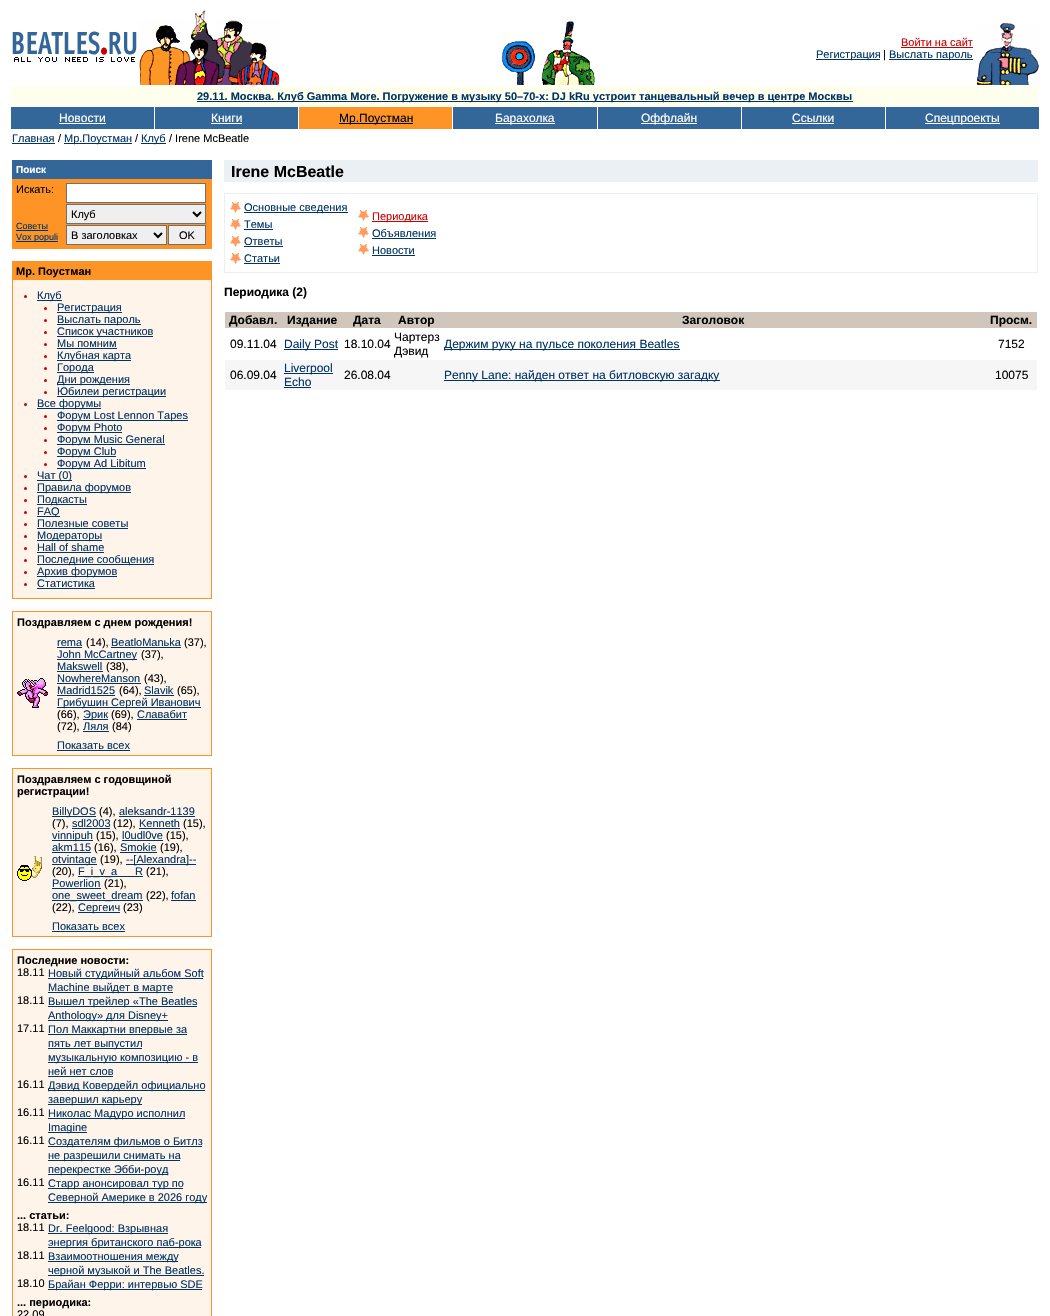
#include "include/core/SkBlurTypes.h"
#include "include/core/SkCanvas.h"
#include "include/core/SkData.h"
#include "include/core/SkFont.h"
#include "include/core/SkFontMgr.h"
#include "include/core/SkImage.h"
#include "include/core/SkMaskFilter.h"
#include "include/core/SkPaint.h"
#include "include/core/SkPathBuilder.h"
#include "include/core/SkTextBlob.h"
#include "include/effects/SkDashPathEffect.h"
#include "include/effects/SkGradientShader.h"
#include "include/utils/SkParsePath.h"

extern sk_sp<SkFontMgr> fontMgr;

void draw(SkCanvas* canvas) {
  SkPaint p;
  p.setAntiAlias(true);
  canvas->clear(SK_ColorWHITE);
  canvas->drawImageRect(SkImages::DeferredFromEncodedData(SkData::MakeFromFileName("images/1.png")), SkRect::MakeLTRB(12, 31, 137, 55), SkSamplingOptions());
  canvas->drawImageRect(SkImages::DeferredFromEncodedData(SkData::MakeFromFileName("images/2.png")), SkRect::MakeLTRB(14, 57, 135, 62), SkSamplingOptions());
  canvas->drawImageRect(SkImages::DeferredFromEncodedData(SkData::MakeFromFileName("images/3.png")), SkRect::MakeLTRB(139, 10, 280, 85), SkSamplingOptions());
  canvas->drawImageRect(SkImages::DeferredFromEncodedData(SkData::MakeFromFileName("images/4.png")), SkRect::MakeLTRB(501, 41, 536, 85), SkSamplingOptions());
  canvas->drawImageRect(SkImages::DeferredFromEncodedData(SkData::MakeFromFileName("images/5.png")), SkRect::MakeLTRB(541, 21, 595, 85), SkSamplingOptions());
  p.setColor(SkColorSetRGB(204, 0, 0));
  canvas->drawRect(SkRect::MakeLTRB(901, 47, 973, 48), p);
  p.setColor(SkColorSetRGB(0, 51, 102));
  canvas->drawRect(SkRect::MakeLTRB(816, 59, 880, 60), p);
  canvas->drawRect(SkRect::MakeLTRB(889, 59, 973, 60), p);
  canvas->drawImageRect(SkImages::DeferredFromEncodedData(SkData::MakeFromFileName("images/6.png")), SkRect::MakeLTRB(977, 23, 1039, 85), SkSamplingOptions());
  p.setColor(SkColorSetRGB(255, 255, 238));
  canvas->drawRect(SkRect::MakeLTRB(11, 86, 1039, 106), p);
  p.setColor(SkColorSetRGB(0, 51, 102));
  canvas->drawRect(SkRect::MakeLTRB(197, 101, 853, 102), p);
  p.setColor(SkColorSetRGB(51, 102, 153));
  canvas->drawRect(SkRect::MakeLTRB(11, 107, 154, 129), p);
  p.setColor(SK_ColorWHITE);
  canvas->drawRect(SkRect::MakeLTRB(59, 123, 106, 124), p);
  p.setColor(SkColorSetRGB(51, 102, 153));
  canvas->drawRect(SkRect::MakeLTRB(155, 107, 298, 129), p);
  p.setColor(SK_ColorWHITE);
  canvas->drawRect(SkRect::MakeLTRB(211, 123, 242, 124), p);
  p.setColor(SkColorSetRGB(255, 148, 38));
  canvas->drawRect(SkRect::MakeLTRB(299, 107, 452, 129), p);
  p.setColor(SK_ColorBLACK);
  canvas->drawRect(SkRect::MakeLTRB(339, 123, 413, 124), p);
  p.setColor(SkColorSetRGB(51, 102, 153));
  canvas->drawRect(SkRect::MakeLTRB(453, 107, 597, 129), p);
  p.setColor(SK_ColorWHITE);
  canvas->drawRect(SkRect::MakeLTRB(495, 123, 555, 124), p);
  p.setColor(SkColorSetRGB(51, 102, 153));
  canvas->drawRect(SkRect::MakeLTRB(598, 107, 741, 129), p);
  p.setColor(SK_ColorWHITE);
  canvas->drawRect(SkRect::MakeLTRB(641, 123, 697, 124), p);
  p.setColor(SkColorSetRGB(51, 102, 153));
  canvas->drawRect(SkRect::MakeLTRB(742, 107, 885, 129), p);
  p.setColor(SK_ColorWHITE);
  canvas->drawRect(SkRect::MakeLTRB(792, 123, 834, 124), p);
  p.setColor(SkColorSetRGB(51, 102, 153));
  canvas->drawRect(SkRect::MakeLTRB(886, 107, 1039, 129), p);
  p.setColor(SK_ColorWHITE);
  canvas->drawRect(SkRect::MakeLTRB(925, 123, 1000, 124), p);
  p.setColor(SkColorSetRGB(0, 51, 102));
  canvas->drawRect(SkRect::MakeLTRB(12, 143, 55, 144), p);
  canvas->drawRect(SkRect::MakeLTRB(64, 143, 132, 144), p);
  canvas->drawRect(SkRect::MakeLTRB(141, 143, 166, 144), p);
  p.setColor(SkColorSetRGB(255, 148, 38));
  canvas->drawRect(SkRect::MakeLTRB(12, 179, 212, 249), p);
  p.setColor(SkColorSetRGB(51, 102, 153));
  canvas->drawRect(SkRect::MakeLTRB(12, 160, 212, 179), p);
  p.setColor(SK_ColorWHITE);
  canvas->drawRect(SkRect::MakeLTRB(66.5f, 183.5f, 205.5f, 202.5f), p);
  p.setStyle(SkPaint::kStroke_Style);
  p.setStrokeWidth(1);
  p.setColor(SkColorSetRGB(112, 112, 112));
  canvas->drawRect(SkRect::MakeLTRB(66.5f, 183.5f, 205.5f, 202.5f), p);
  p.setStyle(SkPaint::kFill_Style);
  p.setColor(SkColorSetRGB(0, 51, 102));
  canvas->drawRect(SkRect::MakeLTRB(16, 230, 48, 231), p);
  canvas->drawRect(SkRect::MakeLTRB(16, 241, 58, 242), p);
  p.setColor(SkColorSetRGB(239, 239, 239));
  canvas->drawRect(SkRect::MakeLTRB(66.5f, 204.5f, 205.5f, 223.5f), p);
  p.setStyle(SkPaint::kStroke_Style);
  p.setColor(SkColorSetRGB(112, 112, 112));
  canvas->drawRect(SkRect::MakeLTRB(66.5f, 204.5f, 205.5f, 223.5f), p);
  p.setStrokeWidth(2);
  p.setColor(SK_ColorBLACK);
  canvas->drawPath(SkPathBuilder().moveTo(193, 212).lineTo(197, 216).lineTo(201, 212).detach(), p);
  p.setStyle(SkPaint::kFill_Style);
  p.setColor(SkColorSetRGB(239, 239, 239));
  canvas->drawRect(SkRect::MakeLTRB(66.5f, 225.5f, 166.5f, 244.5f), p);
  p.setStyle(SkPaint::kStroke_Style);
  p.setStrokeWidth(1);
  p.setColor(SkColorSetRGB(112, 112, 112));
  canvas->drawRect(SkRect::MakeLTRB(66.5f, 225.5f, 166.5f, 244.5f), p);
  p.setStrokeWidth(2);
  p.setColor(SK_ColorBLACK);
  canvas->drawPath(SkPathBuilder().moveTo(154, 233).lineTo(158, 237).lineTo(162, 233).detach(), p);
  p.setStyle(SkPaint::kFill_Style);
  p.setColor(SkColorSetRGB(239, 239, 239));
  canvas->drawRect(SkRect::MakeLTRB(168.5f, 225.5f, 205.5f, 244.5f), p);
  p.setStyle(SkPaint::kStroke_Style);
  p.setStrokeWidth(1);
  p.setColor(SkColorSetRGB(112, 112, 112));
  canvas->drawRect(SkRect::MakeLTRB(168.5f, 225.5f, 205.5f, 244.5f), p);
  p.setStyle(SkPaint::kFill_Style);
  p.setColor(SkColorSetRGB(255, 148, 38));
  canvas->drawRect(SkRect::MakeLTRB(12, 261, 212, 599), p);
  p.setColor(SkColorSetRGB(255, 244, 233));
  canvas->drawRect(SkRect::MakeLTRB(13, 280, 211, 598), p);
  p.setColor(SkColorSetRGB(204, 0, 0));
  canvas->drawCircle(25.5f, 296.5f, 1.5f, p);
  p.setColor(SkColorSetRGB(0, 51, 102));
  canvas->drawRect(SkRect::MakeLTRB(37, 300, 62, 301), p);
  p.setColor(SkColorSetRGB(204, 0, 0));
  canvas->drawCircle(45.5f, 308.5f, 1.5f, p);
  p.setColor(SkColorSetRGB(0, 51, 102));
  canvas->drawRect(SkRect::MakeLTRB(57, 312, 122, 313), p);
  p.setColor(SkColorSetRGB(204, 0, 0));
  canvas->drawCircle(45.5f, 320.5f, 1.5f, p);
  p.setColor(SkColorSetRGB(0, 51, 102));
  canvas->drawRect(SkRect::MakeLTRB(57, 324, 141, 325), p);
  p.setColor(SkColorSetRGB(204, 0, 0));
  canvas->drawCircle(45.5f, 332.5f, 1.5f, p);
  p.setColor(SkColorSetRGB(0, 51, 102));
  canvas->drawRect(SkRect::MakeLTRB(57, 336, 153, 337), p);
  p.setColor(SkColorSetRGB(204, 0, 0));
  canvas->drawCircle(45.5f, 344.5f, 1.5f, p);
  p.setColor(SkColorSetRGB(0, 51, 102));
  canvas->drawRect(SkRect::MakeLTRB(57, 348, 117, 349), p);
  p.setColor(SkColorSetRGB(204, 0, 0));
  canvas->drawCircle(45.5f, 356.5f, 1.5f, p);
  p.setColor(SkColorSetRGB(0, 51, 102));
  canvas->drawRect(SkRect::MakeLTRB(57, 360, 131, 361), p);
  p.setColor(SkColorSetRGB(204, 0, 0));
  canvas->drawCircle(45.5f, 368.5f, 1.5f, p);
  p.setColor(SkColorSetRGB(0, 51, 102));
  canvas->drawRect(SkRect::MakeLTRB(57, 372, 94, 373), p);
  p.setColor(SkColorSetRGB(204, 0, 0));
  canvas->drawCircle(45.5f, 380.5f, 1.5f, p);
  p.setColor(SkColorSetRGB(0, 51, 102));
  canvas->drawRect(SkRect::MakeLTRB(57, 384, 130, 385), p);
  p.setColor(SkColorSetRGB(204, 0, 0));
  canvas->drawCircle(45.5f, 392.5f, 1.5f, p);
  p.setColor(SkColorSetRGB(0, 51, 102));
  canvas->drawRect(SkRect::MakeLTRB(57, 396, 166, 397), p);
  p.setColor(SkColorSetRGB(204, 0, 0));
  canvas->drawCircle(25.5f, 404.5f, 1.5f, p);
  p.setColor(SkColorSetRGB(0, 51, 102));
  canvas->drawRect(SkRect::MakeLTRB(37, 408, 101, 409), p);
  p.setColor(SkColorSetRGB(204, 0, 0));
  canvas->drawCircle(45.5f, 416.5f, 1.5f, p);
  p.setColor(SkColorSetRGB(0, 51, 102));
  canvas->drawRect(SkRect::MakeLTRB(57, 420, 188, 421), p);
  p.setColor(SkColorSetRGB(204, 0, 0));
  canvas->drawCircle(45.5f, 428.5f, 1.5f, p);
  p.setColor(SkColorSetRGB(0, 51, 102));
  canvas->drawRect(SkRect::MakeLTRB(57, 432, 122, 433), p);
  p.setColor(SkColorSetRGB(204, 0, 0));
  canvas->drawCircle(45.5f, 440.5f, 1.5f, p);
  p.setColor(SkColorSetRGB(0, 51, 102));
  canvas->drawRect(SkRect::MakeLTRB(57, 444, 165, 445), p);
  p.setColor(SkColorSetRGB(204, 0, 0));
  canvas->drawCircle(45.5f, 452.5f, 1.5f, p);
  p.setColor(SkColorSetRGB(0, 51, 102));
  canvas->drawRect(SkRect::MakeLTRB(57, 456, 116, 457), p);
  p.setColor(SkColorSetRGB(204, 0, 0));
  canvas->drawCircle(45.5f, 464.5f, 1.5f, p);
  p.setColor(SkColorSetRGB(0, 51, 102));
  canvas->drawRect(SkRect::MakeLTRB(57, 468, 146, 469), p);
  p.setColor(SkColorSetRGB(204, 0, 0));
  canvas->drawCircle(25.5f, 476.5f, 1.5f, p);
  p.setColor(SkColorSetRGB(0, 51, 102));
  canvas->drawRect(SkRect::MakeLTRB(37, 480, 72, 481), p);
  p.setColor(SkColorSetRGB(204, 0, 0));
  canvas->drawCircle(25.5f, 488.5f, 1.5f, p);
  p.setColor(SkColorSetRGB(0, 51, 102));
  canvas->drawRect(SkRect::MakeLTRB(37, 492, 131, 493), p);
  p.setColor(SkColorSetRGB(204, 0, 0));
  canvas->drawCircle(25.5f, 500.5f, 1.5f, p);
  p.setColor(SkColorSetRGB(0, 51, 102));
  canvas->drawRect(SkRect::MakeLTRB(37, 504, 87, 505), p);
  p.setColor(SkColorSetRGB(204, 0, 0));
  canvas->drawCircle(25.5f, 512.5f, 1.5f, p);
  p.setColor(SkColorSetRGB(0, 51, 102));
  canvas->drawRect(SkRect::MakeLTRB(37, 516, 60, 517), p);
  p.setColor(SkColorSetRGB(204, 0, 0));
  canvas->drawCircle(25.5f, 524.5f, 1.5f, p);
  p.setColor(SkColorSetRGB(0, 51, 102));
  canvas->drawRect(SkRect::MakeLTRB(37, 528, 128, 529), p);
  p.setColor(SkColorSetRGB(204, 0, 0));
  canvas->drawCircle(25.5f, 536.5f, 1.5f, p);
  p.setColor(SkColorSetRGB(0, 51, 102));
  canvas->drawRect(SkRect::MakeLTRB(37, 540, 102, 541), p);
  p.setColor(SkColorSetRGB(204, 0, 0));
  canvas->drawCircle(25.5f, 548.5f, 1.5f, p);
  p.setColor(SkColorSetRGB(0, 51, 102));
  canvas->drawRect(SkRect::MakeLTRB(37, 552, 104, 553), p);
  p.setColor(SkColorSetRGB(204, 0, 0));
  canvas->drawCircle(25.5f, 560.5f, 1.5f, p);
  p.setColor(SkColorSetRGB(0, 51, 102));
  canvas->drawRect(SkRect::MakeLTRB(37, 564, 154, 565), p);
  p.setColor(SkColorSetRGB(204, 0, 0));
  canvas->drawCircle(25.5f, 572.5f, 1.5f, p);
  p.setColor(SkColorSetRGB(0, 51, 102));
  canvas->drawRect(SkRect::MakeLTRB(37, 576, 117, 577), p);
  p.setColor(SkColorSetRGB(204, 0, 0));
  canvas->drawCircle(25.5f, 584.5f, 1.5f, p);
  p.setColor(SkColorSetRGB(0, 51, 102));
  canvas->drawRect(SkRect::MakeLTRB(37, 588, 95, 589), p);
  p.setColor(SkColorSetRGB(255, 148, 38));
  canvas->drawRect(SkRect::MakeLTRB(12, 611, 212, 756), p);
  p.setColor(SkColorSetRGB(255, 244, 233));
  canvas->drawRect(SkRect::MakeLTRB(13, 612, 211, 755), p);
  canvas->drawImageRect(SkImages::DeferredFromEncodedData(SkData::MakeFromFileName("images/7.png")), SkRect::MakeLTRB(17, 678, 48, 708), SkSamplingOptions());
  p.setColor(SkColorSetRGB(0, 51, 102));
  canvas->drawRect(SkRect::MakeLTRB(57, 647, 82, 648), p);
  canvas->drawRect(SkRect::MakeLTRB(111, 647, 181, 648), p);
  canvas->drawRect(SkRect::MakeLTRB(57, 659, 137, 660), p);
  canvas->drawRect(SkRect::MakeLTRB(57, 671, 103, 672), p);
  canvas->drawRect(SkRect::MakeLTRB(57, 683, 141, 684), p);
  canvas->drawRect(SkRect::MakeLTRB(57, 695, 115, 696), p);
  canvas->drawRect(SkRect::MakeLTRB(144, 695, 174, 696), p);
  canvas->drawRect(SkRect::MakeLTRB(57, 707, 201, 708), p);
  canvas->drawRect(SkRect::MakeLTRB(83, 719, 108, 720), p);
  canvas->drawRect(SkRect::MakeLTRB(137, 719, 187, 720), p);
  canvas->drawRect(SkRect::MakeLTRB(83, 731, 109, 732), p);
  canvas->drawRect(SkRect::MakeLTRB(57, 750, 130, 751), p);
  p.setColor(SkColorSetRGB(255, 148, 38));
  canvas->drawRect(SkRect::MakeLTRB(12, 768, 212, 937), p);
  p.setColor(SkColorSetRGB(255, 244, 233));
  canvas->drawRect(SkRect::MakeLTRB(13, 769, 211, 936), p);
  canvas->drawImageRect(SkImages::DeferredFromEncodedData(SkData::MakeFromFileName("images/8.png")), SkRect::MakeLTRB(17, 856, 42, 881), SkSamplingOptions());
  p.setColor(SkColorSetRGB(0, 51, 102));
  canvas->drawRect(SkRect::MakeLTRB(52, 816, 96, 817), p);
  canvas->drawRect(SkRect::MakeLTRB(119, 816, 195, 817), p);
  canvas->drawRect(SkRect::MakeLTRB(72, 828, 110, 829), p);
  canvas->drawRect(SkRect::MakeLTRB(139, 828, 180, 829), p);
  canvas->drawRect(SkRect::MakeLTRB(52, 840, 93, 841), p);
  canvas->drawRect(SkRect::MakeLTRB(122, 840, 163, 841), p);
  canvas->drawRect(SkRect::MakeLTRB(52, 852, 91, 853), p);
  canvas->drawRect(SkRect::MakeLTRB(120, 852, 157, 853), p);
  canvas->drawRect(SkRect::MakeLTRB(52, 864, 97, 865), p);
  canvas->drawRect(SkRect::MakeLTRB(126, 864, 196, 865), p);
  canvas->drawRect(SkRect::MakeLTRB(78, 876, 143, 877), p);
  canvas->drawRect(SkRect::MakeLTRB(52, 888, 101, 889), p);
  canvas->drawRect(SkRect::MakeLTRB(52, 900, 143, 901), p);
  canvas->drawRect(SkRect::MakeLTRB(171, 900, 196, 901), p);
  canvas->drawRect(SkRect::MakeLTRB(78, 912, 120, 913), p);
  canvas->drawRect(SkRect::MakeLTRB(52, 931, 125, 932), p);
  p.setColor(SkColorSetRGB(255, 148, 38));
  canvas->drawRect(SkRect::MakeLTRB(12, 949, 212, 1316), p);
  p.setColor(SkColorSetRGB(255, 244, 233));
  canvas->drawRect(SkRect::MakeLTRB(13, 950, 211, 1316), p);
  p.setColor(SkColorSetRGB(0, 51, 102));
  canvas->drawRect(SkRect::MakeLTRB(48, 978, 203, 979), p);
  canvas->drawRect(SkRect::MakeLTRB(48, 992, 173, 993), p);
  canvas->drawRect(SkRect::MakeLTRB(48, 1006, 197, 1007), p);
  canvas->drawRect(SkRect::MakeLTRB(48, 1020, 168, 1021), p);
  canvas->drawRect(SkRect::MakeLTRB(48, 1034, 187, 1035), p);
  canvas->drawRect(SkRect::MakeLTRB(48, 1048, 142, 1049), p);
  canvas->drawRect(SkRect::MakeLTRB(48, 1062, 198, 1063), p);
  canvas->drawRect(SkRect::MakeLTRB(48, 1076, 113, 1077), p);
  canvas->drawRect(SkRect::MakeLTRB(48, 1090, 205, 1091), p);
  canvas->drawRect(SkRect::MakeLTRB(48, 1104, 142, 1105), p);
  canvas->drawRect(SkRect::MakeLTRB(48, 1118, 185, 1119), p);
  canvas->drawRect(SkRect::MakeLTRB(48, 1132, 87, 1133), p);
  canvas->drawRect(SkRect::MakeLTRB(48, 1146, 202, 1147), p);
  canvas->drawRect(SkRect::MakeLTRB(48, 1160, 180, 1161), p);
  canvas->drawRect(SkRect::MakeLTRB(48, 1174, 168, 1175), p);
  canvas->drawRect(SkRect::MakeLTRB(48, 1188, 183, 1189), p);
  canvas->drawRect(SkRect::MakeLTRB(48, 1202, 207, 1203), p);
  canvas->drawRect(SkRect::MakeLTRB(48, 1233, 168, 1234), p);
  canvas->drawRect(SkRect::MakeLTRB(48, 1247, 201, 1248), p);
  canvas->drawRect(SkRect::MakeLTRB(48, 1261, 178, 1262), p);
  canvas->drawRect(SkRect::MakeLTRB(48, 1275, 204, 1276), p);
  canvas->drawRect(SkRect::MakeLTRB(48, 1289, 202, 1290), p);
  p.setColor(SkColorSetRGB(235, 240, 245));
  canvas->drawRect(SkRect::MakeLTRB(224, 160, 1038, 182), p);
  p.setStyle(SkPaint::kStroke_Style);
  canvas->drawRect(SkRect::MakeLTRB(224.5f, 193.5f, 1037.5f, 272.5f), p);
  canvas->drawImageRect(SkImages::DeferredFromEncodedData(SkData::MakeFromFileName("images/9.png")), SkRect::MakeLTRB(230, 202, 241, 213), SkSamplingOptions());
  p.setStyle(SkPaint::kFill_Style);
  p.setColor(SkColorSetRGB(0, 51, 102));
  canvas->drawRect(SkRect::MakeLTRB(244, 212, 348, 213), p);
  canvas->drawImageRect(SkImages::DeferredFromEncodedData(SkData::MakeFromFileName("images/9.png")), SkRect::MakeLTRB(230, 219, 241, 230), SkSamplingOptions());
  canvas->drawRect(SkRect::MakeLTRB(244, 229, 273, 230), p);
  canvas->drawImageRect(SkImages::DeferredFromEncodedData(SkData::MakeFromFileName("images/9.png")), SkRect::MakeLTRB(230, 236, 241, 247), SkSamplingOptions());
  canvas->drawRect(SkRect::MakeLTRB(244, 246, 283, 247), p);
  canvas->drawImageRect(SkImages::DeferredFromEncodedData(SkData::MakeFromFileName("images/9.png")), SkRect::MakeLTRB(230, 253, 241, 264), SkSamplingOptions());
  canvas->drawRect(SkRect::MakeLTRB(244, 263, 280, 264), p);
  canvas->drawImageRect(SkImages::DeferredFromEncodedData(SkData::MakeFromFileName("images/9.png")), SkRect::MakeLTRB(358, 210, 369, 221), SkSamplingOptions());
  p.setColor(SkColorSetRGB(204, 0, 0));
  canvas->drawRect(SkRect::MakeLTRB(372, 221, 428, 222), p);
  canvas->drawImageRect(SkImages::DeferredFromEncodedData(SkData::MakeFromFileName("images/9.png")), SkRect::MakeLTRB(358, 227, 369, 238), SkSamplingOptions());
  p.setColor(SkColorSetRGB(0, 51, 102));
  canvas->drawRect(SkRect::MakeLTRB(372, 238, 436, 239), p);
  canvas->drawImageRect(SkImages::DeferredFromEncodedData(SkData::MakeFromFileName("images/9.png")), SkRect::MakeLTRB(358, 244, 369, 255), SkSamplingOptions());
  canvas->drawRect(SkRect::MakeLTRB(372, 255, 415, 256), p);
  p.setColor(SkColorSetRGB(209, 198, 187));
  canvas->drawRect(SkRect::MakeLTRB(225, 312, 1037, 328), p);
  p.setColor(SkColorSetRGB(0, 51, 102));
  canvas->drawRect(SkRect::MakeLTRB(284, 349, 338, 350), p);
  canvas->drawRect(SkRect::MakeLTRB(444, 349, 680, 350), p);
  p.setColor(SkColorSetRGB(246, 246, 246));
  canvas->drawRect(SkRect::MakeLTRB(225, 360, 1037, 390), p);
  p.setColor(SkColorSetRGB(0, 51, 102));
  canvas->drawRect(SkRect::MakeLTRB(284, 373, 333, 374), p);
  canvas->drawRect(SkRect::MakeLTRB(284, 387, 311, 388), p);
  canvas->drawRect(SkRect::MakeLTRB(444, 380, 720, 381), p);
  SkFont font1(fontMgr->matchFamilyStyle("Liberation Sans", SkFontStyle::Normal()), 11);
  font1.setSubpixel(true);
  p.setColor(SkColorSetRGB(204, 0, 0));
  canvas->drawString("Войти на сайт", 901, 46, font1, p);
  p.setColor(SkColorSetRGB(0, 51, 102));
  canvas->drawString("Регистрация", 816, 58, font1, p);
  p.setColor(SK_ColorBLACK);
  canvas->drawString("|", 883, 58, font1, p);
  p.setColor(SkColorSetRGB(0, 51, 102));
  canvas->drawString("Выслать пароль", 889, 58, font1, p);
  SkFont font2(fontMgr->matchFamilyStyle("Liberation Sans", SkFontStyle::Bold()), 11);
  font2.setSubpixel(true);
  canvas->drawString("29.11. Москва. Клуб Gamma More. Погружение в музыку 50–70-х: DJ kRu устроит танцевальный вечер в центре Москвы", 197, 100, font2, p);
  SkFont font3(fontMgr->matchFamilyStyle("Liberation Sans", SkFontStyle::Normal()), 12);
  font3.setSubpixel(true);
  p.setColor(SK_ColorWHITE);
  canvas->drawString("Новости", 59, 122, font3, p);
  canvas->drawString("Книги", 211, 122, font3, p);
  p.setColor(SK_ColorBLACK);
  canvas->drawString("Мр.Поустман", 339, 122, font3, p);
  p.setColor(SK_ColorWHITE);
  canvas->drawString("Барахолка", 495, 122, font3, p);
  canvas->drawString("Оффлайн", 641, 122, font3, p);
  canvas->drawString("Ссылки", 792, 122, font3, p);
  canvas->drawString("Спецпроекты", 925, 122, font3, p);
  p.setColor(SkColorSetRGB(0, 51, 102));
  canvas->drawString("Главная", 12, 142, font1, p);
  p.setColor(SK_ColorBLACK);
  canvas->drawString("/", 58, 142, font1, p);
  p.setColor(SkColorSetRGB(0, 51, 102));
  canvas->drawString("Мр.Поустман", 64, 142, font1, p);
  p.setColor(SK_ColorBLACK);
  canvas->drawString("/", 135, 142, font1, p);
  p.setColor(SkColorSetRGB(0, 51, 102));
  canvas->drawString("Клуб", 141, 142, font1, p);
  p.setColor(SK_ColorBLACK);
  canvas->drawString("/ Irene McBeatle", 169, 142, font1, p);
  SkFont font4(fontMgr->matchFamilyStyle("Liberation Sans", SkFontStyle::Bold()), 10);
  font4.setSubpixel(true);
  p.setColor(SK_ColorWHITE);
  canvas->drawString("Поиск", 16, 173, font4, p);
  p.setColor(SK_ColorBLACK);
  canvas->drawString("Искать:", 16, 193, font1, p);
  SkFont font5(fontMgr->matchFamilyStyle("Liberation Sans", SkFontStyle::Normal()), 9);
  font5.setSubpixel(true);
  p.setColor(SkColorSetRGB(0, 51, 102));
  canvas->drawString("Советы", 16, 229, font5, p);
  canvas->drawString("Vox populi", 16, 240, font5, p);
  p.setColor(SK_ColorBLACK);
  canvas->drawString("Клуб", 71, 218, font1, p);
  canvas->drawString("В заголовках", 71, 239, font1, p);
  canvas->drawString("OK", 179, 239, font1, p);
  canvas->drawString("Мр. Поустман", 16, 275, font2, p);
  p.setColor(SkColorSetRGB(0, 51, 102));
  canvas->drawString("Клуб", 37, 299, font1, p);
  canvas->drawString("Регистрация", 57, 311, font1, p);
  canvas->drawString("Выслать пароль", 57, 323, font1, p);
  canvas->drawString("Список участников", 57, 335, font1, p);
  canvas->drawString("Мы помним", 57, 347, font1, p);
  canvas->drawString("Клубная карта", 57, 359, font1, p);
  canvas->drawString("Города", 57, 371, font1, p);
  canvas->drawString("Дни рождения", 57, 383, font1, p);
  canvas->drawString("Юбилеи регистрации", 57, 395, font1, p);
  canvas->drawString("Все форумы", 37, 407, font1, p);
  canvas->drawString("Форум Lost Lennon Tapes", 57, 419, font1, p);
  canvas->drawString("Форум Photo", 57, 431, font1, p);
  canvas->drawString("Форум Music General", 57, 443, font1, p);
  canvas->drawString("Форум Club", 57, 455, font1, p);
  canvas->drawString("Форум Ad Libitum", 57, 467, font1, p);
  canvas->drawString("Чат (0)", 37, 479, font1, p);
  canvas->drawString("Правила форумов", 37, 491, font1, p);
  canvas->drawString("Подкасты", 37, 503, font1, p);
  canvas->drawString("FAQ", 37, 515, font1, p);
  canvas->drawString("Полезные советы", 37, 527, font1, p);
  canvas->drawString("Модераторы", 37, 539, font1, p);
  canvas->drawString("Hall of shame", 37, 551, font1, p);
  canvas->drawString("Последние сообщения", 37, 563, font1, p);
  canvas->drawString("Архив форумов", 37, 575, font1, p);
  canvas->drawString("Статистика", 37, 587, font1, p);
  p.setColor(SK_ColorBLACK);
  canvas->drawString("Поздравляем с днем рождения!", 17, 626, font2, p);
  p.setColor(SkColorSetRGB(0, 51, 102));
  canvas->drawString("rema", 57, 646, font1, p);
  p.setColor(SK_ColorBLACK);
  canvas->drawString("(14),", 86, 646, font1, p);
  p.setColor(SkColorSetRGB(0, 51, 102));
  canvas->drawString("BeatloManьka", 111, 646, font1, p);
  p.setColor(SK_ColorBLACK);
  canvas->drawString("(37),", 184, 646, font1, p);
  p.setColor(SkColorSetRGB(0, 51, 102));
  canvas->drawString("John McCartney", 57, 658, font1, p);
  p.setColor(SK_ColorBLACK);
  canvas->drawString("(37),", 141, 658, font1, p);
  p.setColor(SkColorSetRGB(0, 51, 102));
  canvas->drawString("Makswell", 57, 670, font1, p);
  p.setColor(SK_ColorBLACK);
  canvas->drawString("(38),", 106, 670, font1, p);
  p.setColor(SkColorSetRGB(0, 51, 102));
  canvas->drawString("NowhereManson", 57, 682, font1, p);
  p.setColor(SK_ColorBLACK);
  canvas->drawString("(43),", 144, 682, font1, p);
  p.setColor(SkColorSetRGB(0, 51, 102));
  canvas->drawString("Madrid1525", 57, 694, font1, p);
  p.setColor(SK_ColorBLACK);
  canvas->drawString("(64),", 119, 694, font1, p);
  p.setColor(SkColorSetRGB(0, 51, 102));
  canvas->drawString("Slavik", 144, 694, font1, p);
  p.setColor(SK_ColorBLACK);
  canvas->drawString("(65),", 177, 694, font1, p);
  p.setColor(SkColorSetRGB(0, 51, 102));
  canvas->drawString("Грибушин Сергей Иванович", 57, 706, font1, p);
  p.setColor(SK_ColorBLACK);
  canvas->drawString("(66),", 57, 718, font1, p);
  p.setColor(SkColorSetRGB(0, 51, 102));
  canvas->drawString("Эрик", 83, 718, font1, p);
  p.setColor(SK_ColorBLACK);
  canvas->drawString("(69),", 111, 718, font1, p);
  p.setColor(SkColorSetRGB(0, 51, 102));
  canvas->drawString("Славабит", 137, 718, font1, p);
  p.setColor(SK_ColorBLACK);
  canvas->drawString("(72),", 57, 730, font1, p);
  p.setColor(SkColorSetRGB(0, 51, 102));
  canvas->drawString("Ляля", 83, 730, font1, p);
  p.setColor(SK_ColorBLACK);
  canvas->drawString("(84)", 112, 730, font1, p);
  p.setColor(SkColorSetRGB(0, 51, 102));
  canvas->drawString("Показать всех", 57, 749, font1, p);
  p.setColor(SK_ColorBLACK);
  canvas->drawString("Поздравляем с годовщиной", 17, 783, font2, p);
  canvas->drawString("регистрации!", 17, 795, font2, p);
  p.setColor(SkColorSetRGB(0, 51, 102));
  canvas->drawString("BillyDOS", 52, 815, font1, p);
  p.setColor(SK_ColorBLACK);
  canvas->drawString("(4),", 99, 815, font1, p);
  p.setColor(SkColorSetRGB(0, 51, 102));
  canvas->drawString("aleksandr-1139", 119, 815, font1, p);
  p.setColor(SK_ColorBLACK);
  canvas->drawString("(7),", 52, 827, font1, p);
  p.setColor(SkColorSetRGB(0, 51, 102));
  canvas->drawString("sdl2003", 72, 827, font1, p);
  p.setColor(SK_ColorBLACK);
  canvas->drawString("(12),", 113, 827, font1, p);
  p.setColor(SkColorSetRGB(0, 51, 102));
  canvas->drawString("Kenneth", 139, 827, font1, p);
  p.setColor(SK_ColorBLACK);
  canvas->drawString("(15),", 183, 827, font1, p);
  p.setColor(SkColorSetRGB(0, 51, 102));
  canvas->drawString("vinnipuh", 52, 839, font1, p);
  p.setColor(SK_ColorBLACK);
  canvas->drawString("(15),", 96, 839, font1, p);
  p.setColor(SkColorSetRGB(0, 51, 102));
  canvas->drawString("l0udl0ve", 122, 839, font1, p);
  p.setColor(SK_ColorBLACK);
  canvas->drawString("(15),", 166, 839, font1, p);
  p.setColor(SkColorSetRGB(0, 51, 102));
  canvas->drawString("akm115", 52, 851, font1, p);
  p.setColor(SK_ColorBLACK);
  canvas->drawString("(16),", 94, 851, font1, p);
  p.setColor(SkColorSetRGB(0, 51, 102));
  canvas->drawString("Smokie", 120, 851, font1, p);
  p.setColor(SK_ColorBLACK);
  canvas->drawString("(19),", 160, 851, font1, p);
  p.setColor(SkColorSetRGB(0, 51, 102));
  canvas->drawString("otvintage", 52, 863, font1, p);
  p.setColor(SK_ColorBLACK);
  canvas->drawString("(19),", 100, 863, font1, p);
  p.setColor(SkColorSetRGB(0, 51, 102));
  canvas->drawString("--[Alexandra]--", 126, 863, font1, p);
  p.setColor(SK_ColorBLACK);
  canvas->drawString("(20),", 52, 875, font1, p);
  p.setColor(SkColorSetRGB(0, 51, 102));
  canvas->drawString("F_i_v_a", 78, 875, font1, p);
  canvas->drawString("R", 135, 875, font1, p);
  p.setColor(SK_ColorBLACK);
  canvas->drawString("(21),", 146, 875, font1, p);
  p.setColor(SkColorSetRGB(0, 51, 102));
  canvas->drawString("Powerlion", 52, 887, font1, p);
  p.setColor(SK_ColorBLACK);
  canvas->drawString("(21),", 104, 887, font1, p);
  p.setColor(SkColorSetRGB(0, 51, 102));
  canvas->drawString("one_sweet_dream", 52, 899, font1, p);
  p.setColor(SK_ColorBLACK);
  canvas->drawString("(22),", 146, 899, font1, p);
  p.setColor(SkColorSetRGB(0, 51, 102));
  canvas->drawString("fofan", 171, 899, font1, p);
  p.setColor(SK_ColorBLACK);
  canvas->drawString("(22),", 52, 911, font1, p);
  p.setColor(SkColorSetRGB(0, 51, 102));
  canvas->drawString("Сергеич", 78, 911, font1, p);
  p.setColor(SK_ColorBLACK);
  canvas->drawString("(23)", 123, 911, font1, p);
  p.setColor(SkColorSetRGB(0, 51, 102));
  canvas->drawString("Показать всех", 52, 930, font1, p);
  p.setColor(SK_ColorBLACK);
  canvas->drawString("Последние новости:", 17, 964, font2, p);
  canvas->drawString("18.11", 17, 976, font1, p);
  p.setColor(SkColorSetRGB(0, 51, 102));
  canvas->drawString("Новый студийный альбом Soft", 48, 977, font1, p);
  canvas->drawString("Machine выйдет в марте", 48, 991, font1, p);
  p.setColor(SK_ColorBLACK);
  canvas->drawString("18.11", 17, 1004, font1, p);
  p.setColor(SkColorSetRGB(0, 51, 102));
  canvas->drawString("Вышел трейлер «The Beatles", 48, 1005, font1, p);
  canvas->drawString("Anthology» для Disney+", 48, 1019, font1, p);
  p.setColor(SK_ColorBLACK);
  canvas->drawString("17.11", 17, 1032, font1, p);
  p.setColor(SkColorSetRGB(0, 51, 102));
  canvas->drawString("Пол Маккартни впервые за", 48, 1033, font1, p);
  canvas->drawString("пять лет выпустил", 48, 1047, font1, p);
  canvas->drawString("музыкальную композицию - в", 48, 1061, font1, p);
  canvas->drawString("ней нет слов", 48, 1075, font1, p);
  p.setColor(SK_ColorBLACK);
  canvas->drawString("16.11", 17, 1088, font1, p);
  p.setColor(SkColorSetRGB(0, 51, 102));
  canvas->drawString("Дэвид Ковердейл официально", 48, 1089, font1, p);
  canvas->drawString("завершил карьеру", 48, 1103, font1, p);
  p.setColor(SK_ColorBLACK);
  canvas->drawString("16.11", 17, 1116, font1, p);
  p.setColor(SkColorSetRGB(0, 51, 102));
  canvas->drawString("Николас Мадуро исполнил", 48, 1117, font1, p);
  canvas->drawString("Imagine", 48, 1131, font1, p);
  p.setColor(SK_ColorBLACK);
  canvas->drawString("16.11", 17, 1144, font1, p);
  p.setColor(SkColorSetRGB(0, 51, 102));
  canvas->drawString("Создателям фильмов о Битлз", 48, 1145, font1, p);
  canvas->drawString("не разрешили снимать на", 48, 1159, font1, p);
  canvas->drawString("перекрестке Эбби-роуд", 48, 1173, font1, p);
  p.setColor(SK_ColorBLACK);
  canvas->drawString("16.11", 17, 1186, font1, p);
  p.setColor(SkColorSetRGB(0, 51, 102));
  canvas->drawString("Старр анонсировал тур по", 48, 1187, font1, p);
  canvas->drawString("Северной Америке в 2026 году", 48, 1201, font1, p);
  p.setColor(SK_ColorBLACK);
  canvas->drawString("... статьи:", 17, 1219, font2, p);
  canvas->drawString("18.11", 17, 1231, font1, p);
  p.setColor(SkColorSetRGB(0, 51, 102));
  canvas->drawString("Dr. Feelgood: Взрывная", 48, 1232, font1, p);
  canvas->drawString("энергия британского паб-рока", 48, 1246, font1, p);
  p.setColor(SK_ColorBLACK);
  canvas->drawString("18.11", 17, 1259, font1, p);
  p.setColor(SkColorSetRGB(0, 51, 102));
  canvas->drawString("Взаимоотношения между", 48, 1260, font1, p);
  canvas->drawString("черной музыкой и The Beatles.", 48, 1274, font1, p);
  p.setColor(SK_ColorBLACK);
  canvas->drawString("18.10", 17, 1287, font1, p);
  p.setColor(SkColorSetRGB(0, 51, 102));
  canvas->drawString("Брайан Ферри: интервью SDE", 48, 1288, font1, p);
  p.setColor(SK_ColorBLACK);
  canvas->drawString("... периодика:", 17, 1306, font2, p);
  canvas->drawString("22.09", 17, 1318, font1, p);
  SkFont font6(fontMgr->matchFamilyStyle("Liberation Sans", SkFontStyle::Bold()), 16);
  font6.setSubpixel(true);
  canvas->drawString("Irene McBeatle", 231, 177, font6, p);
  p.setColor(SkColorSetRGB(0, 51, 102));
  canvas->drawString("Основные сведения", 244, 211, font1, p);
  canvas->drawString("Темы", 244, 228, font1, p);
  canvas->drawString("Ответы", 244, 245, font1, p);
  canvas->drawString("Статьи", 244, 262, font1, p);
  p.setColor(SkColorSetRGB(204, 0, 0));
  canvas->drawString("Периодика", 372, 220, font1, p);
  p.setColor(SkColorSetRGB(0, 51, 102));
  canvas->drawString("Объявления", 372, 237, font1, p);
  canvas->drawString("Новости", 372, 254, font1, p);
  SkFont font7(fontMgr->matchFamilyStyle("Liberation Sans", SkFontStyle::Bold()), 12);
  font7.setSubpixel(true);
  p.setColor(SK_ColorBLACK);
  canvas->drawString("Периодика (2)", 224, 296, font7, p);
  canvas->drawString("Добавл.", 229, 324, font7, p);
  canvas->drawString("Издание", 287, 324, font7, p);
  canvas->drawString("Дата", 353, 324, font7, p);
  canvas->drawString("Автор", 398, 324, font7, p);
  canvas->drawString("Заголовок", 682, 324, font7, p);
  canvas->drawString("Просм.", 990, 324, font7, p);
  canvas->drawString("09.11.04", 230, 348, font3, p);
  p.setColor(SkColorSetRGB(0, 51, 102));
  canvas->drawString("Daily Post", 284, 348, font3, p);
  p.setColor(SK_ColorBLACK);
  canvas->drawString("18.10.04", 344, 348, font3, p);
  canvas->drawString("Чартерз", 394, 341, font3, p);
  canvas->drawString("Дэвид", 394, 355, font3, p);
  p.setColor(SkColorSetRGB(0, 51, 102));
  canvas->drawString("Держим руку на пульсе поколения Beatles", 444, 348, font3, p);
  p.setColor(SK_ColorBLACK);
  canvas->drawString("7152", 998, 348, font3, p);
  canvas->drawString("06.09.04", 230, 379, font3, p);
  p.setColor(SkColorSetRGB(0, 51, 102));
  canvas->drawString("Liverpool", 284, 372, font3, p);
  canvas->drawString("Echo", 284, 386, font3, p);
  p.setColor(SK_ColorBLACK);
  canvas->drawString("26.08.04", 344, 379, font3, p);
  p.setColor(SkColorSetRGB(0, 51, 102));
  canvas->drawString("Penny Lane: найден ответ на битловскую загадку", 444, 379, font3, p);
  p.setColor(SK_ColorBLACK);
  canvas->drawString("10075", 995, 379, font3, p);
}
